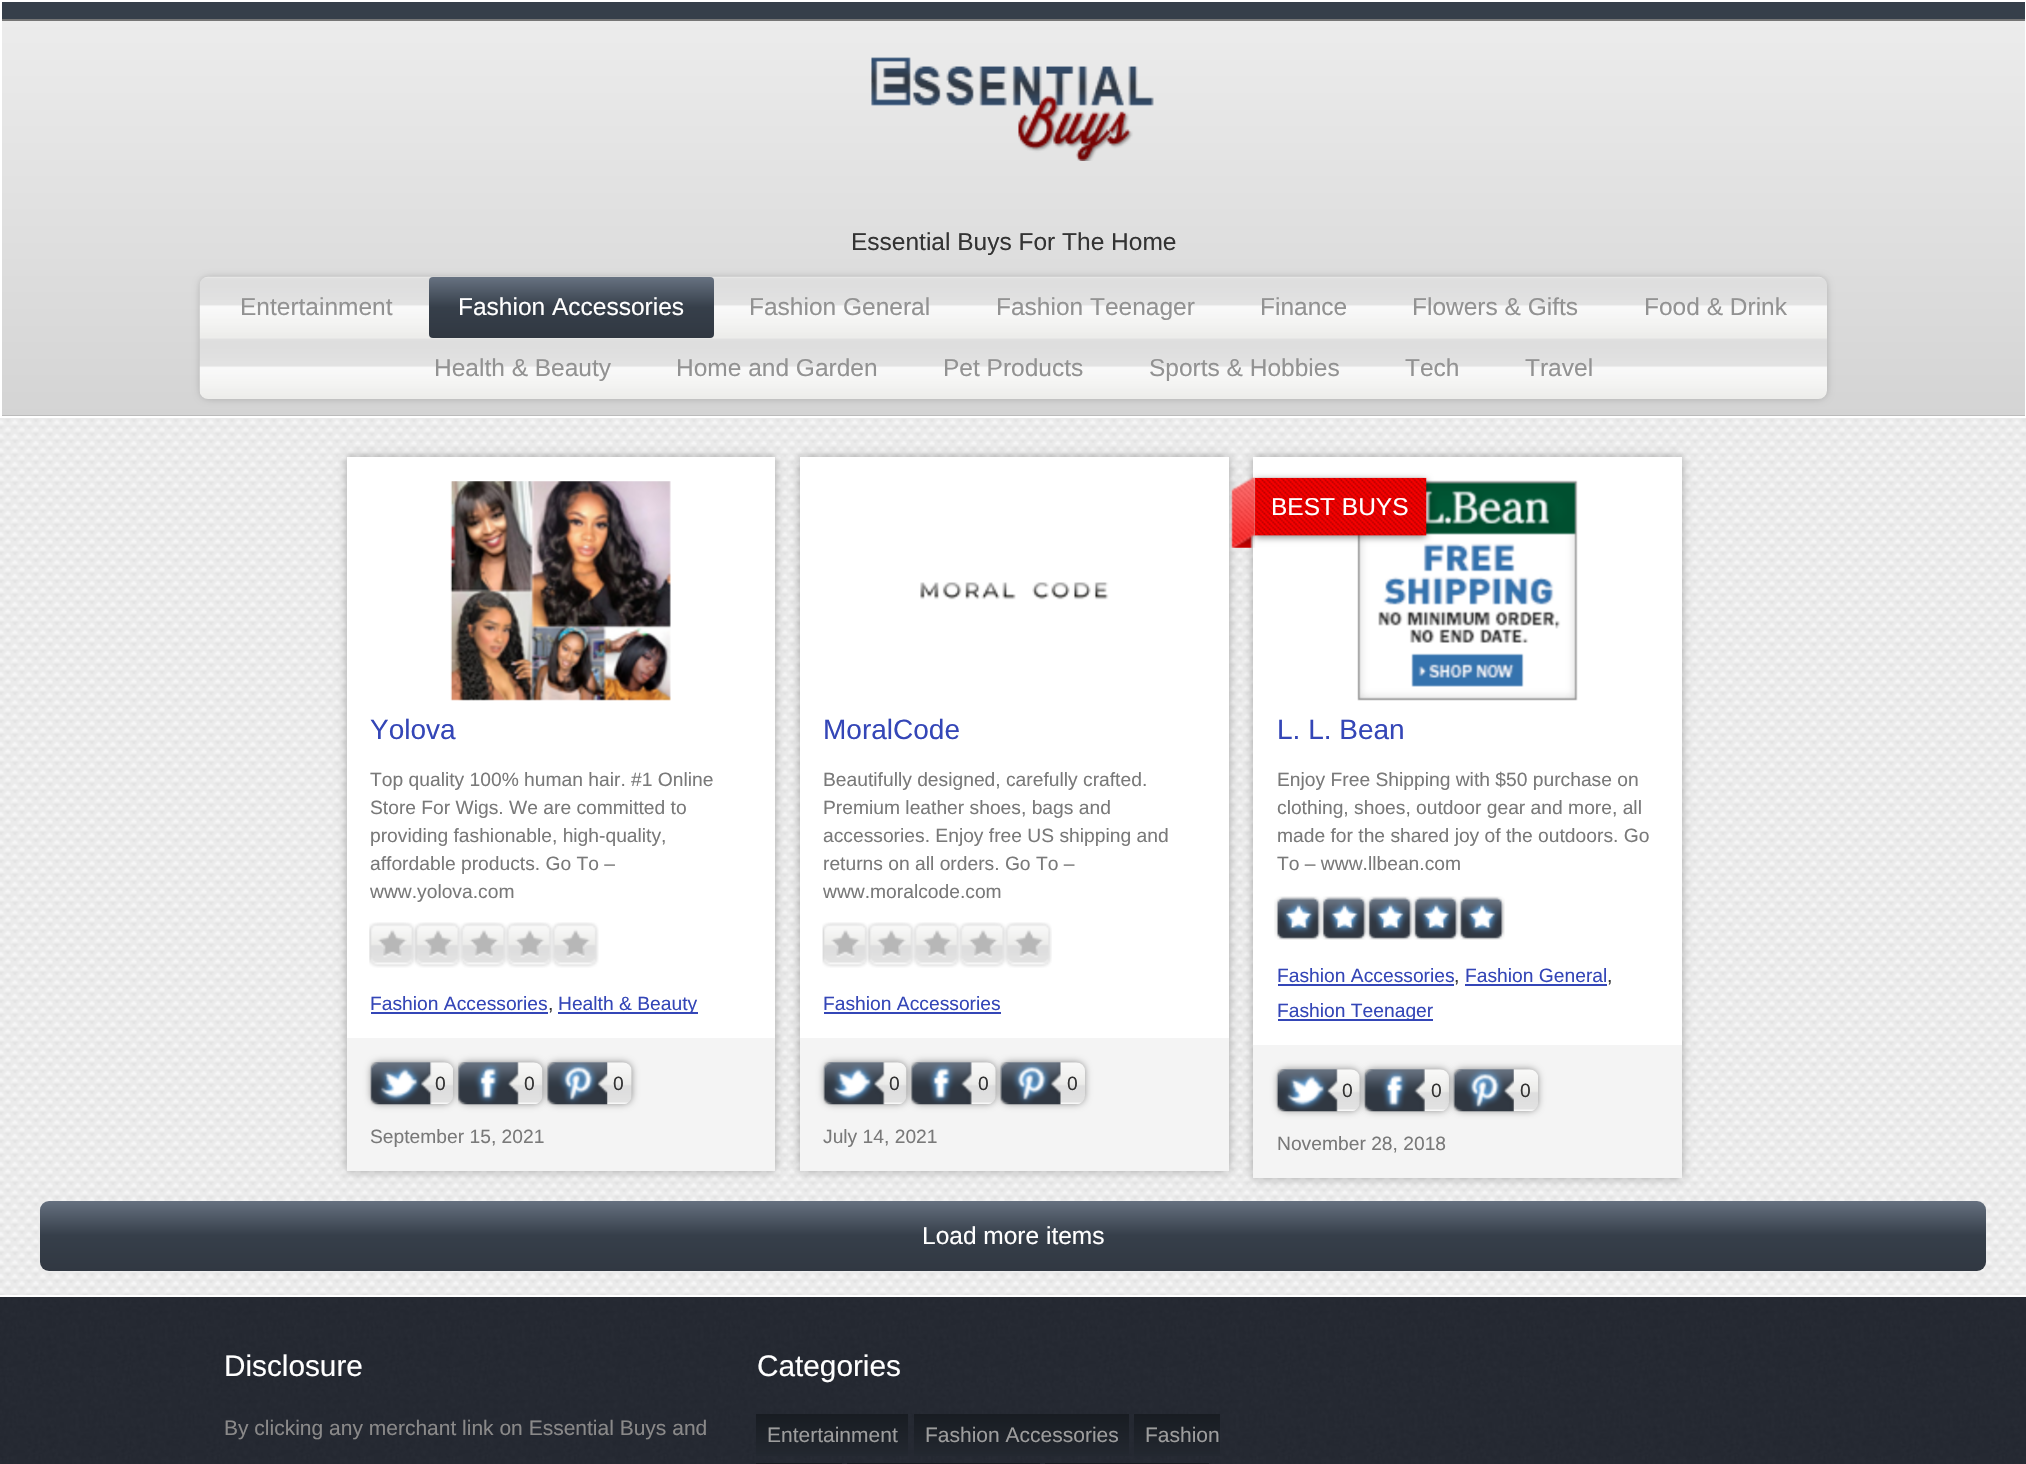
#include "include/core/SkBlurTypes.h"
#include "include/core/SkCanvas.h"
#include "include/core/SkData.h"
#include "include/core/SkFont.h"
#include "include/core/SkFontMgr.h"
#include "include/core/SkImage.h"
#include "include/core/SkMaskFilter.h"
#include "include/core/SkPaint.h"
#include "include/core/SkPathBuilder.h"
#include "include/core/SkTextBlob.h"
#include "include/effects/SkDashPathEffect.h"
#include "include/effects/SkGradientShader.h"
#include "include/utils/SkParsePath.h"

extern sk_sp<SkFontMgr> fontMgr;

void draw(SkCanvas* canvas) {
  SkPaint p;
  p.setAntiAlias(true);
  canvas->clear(SK_ColorWHITE);
  canvas->drawImageRect(SkImages::DeferredFromEncodedData(SkData::MakeFromFileName("images/1.png")), SkRect::MakeLTRB(0, 418, 2026, 1295), SkSamplingOptions());
  {
    const SkColor colors[] = {SkColorSetRGB(237, 237, 237), SkColorSetRGB(212, 212, 212)};
    const float stops[] = {0, 1};
    const SkPoint ends[] = {{1013, 1.7f}, {1013, 417}};
    p.setShader(SkGradientShader::MakeLinear(ends, colors, stops, 2, SkTileMode::kClamp));
    p.setAlpha(255);
  }
  canvas->drawRect(SkRect::MakeLTRB(2, 21, 2025, 415), p);
  p.setShader(nullptr);
  p.setColor(SkColorSetRGB(187, 187, 187));
  canvas->drawRect(SkRect::MakeLTRB(2, 415, 2025, 416), p);
  p.setColor(SkColorSetRGB(54, 63, 74));
  canvas->drawRect(SkRect::MakeLTRB(2, 2, 2025, 19), p);
  p.setColor(SkColorSetRGB(118, 118, 118));
  canvas->drawRect(SkRect::MakeLTRB(2, 19, 2025, 21), p);
  canvas->drawImageRect(SkImages::DeferredFromEncodedData(SkData::MakeFromFileName("images/2.png")), SkRect::MakeLTRB(871, 57, 1154, 161), SkSamplingOptions());
  p.setColor(SkColorSetARGB(51, 0, 0, 0));
  p.setMaskFilter(SkMaskFilter::MakeBlur(kNormal_SkBlurStyle, 3.5f));
  canvas->drawRoundRect(SkRect::MakeLTRB(200, 277, 1827, 399), 9, 9, p);
  p.setMaskFilter(nullptr);
  canvas->drawImageRect(SkImages::DeferredFromEncodedData(SkData::MakeFromFileName("images/3.png")), SkRect::MakeLTRB(199, 276, 1827, 399), SkSamplingOptions());
  {
    const SkColor colors[] = {SkColorSetRGB(103, 114, 129), SkColorSetRGB(54, 63, 74), SkColorSetRGB(49, 56, 66)};
    const float stops[] = {0, 0.5f, 1};
    const SkPoint ends[] = {{571, 277}, {571, 338}};
    p.setShader(SkGradientShader::MakeLinear(ends, colors, stops, 3, SkTileMode::kClamp));
    p.setAlpha(255);
  }
  canvas->drawRoundRect(SkRect::MakeLTRB(429, 277, 714, 338), 4, 4, p);
  p.setShader(nullptr);
  p.setColor(SkColorSetARGB(77, 0, 0, 0));
  p.setMaskFilter(SkMaskFilter::MakeBlur(kNormal_SkBlurStyle, 4.5f));
  canvas->drawRect(SkRect::MakeLTRB(347, 457, 775, 1171), p);
  p.setMaskFilter(nullptr);
  p.setColor(SK_ColorWHITE);
  canvas->drawRect(SkRect::MakeLTRB(347, 457, 775, 1038), p);
  canvas->drawImageRect(SkImages::DeferredFromEncodedData(SkData::MakeFromFileName("images/4.png")), SkRect::MakeLTRB(450, 481, 671, 701), SkSamplingOptions());
  canvas->drawImageRect(SkImages::DeferredFromEncodedData(SkData::MakeFromFileName("images/5.png")), SkRect::MakeLTRB(369, 922, 599, 968), SkSamplingOptions());
  p.setColor(SkColorSetRGB(52, 70, 183));
  canvas->drawRect(SkRect::MakeLTRB(371, 1012, 548, 1014), p);
  canvas->drawRect(SkRect::MakeLTRB(558, 1012, 698, 1014), p);
  p.setColor(SkColorSetRGB(244, 244, 244));
  canvas->drawRect(SkRect::MakeLTRB(347, 1038, 775, 1171), p);
  p.setColor(SkColorSetARGB(102, 0, 0, 0));
  p.setMaskFilter(SkMaskFilter::MakeBlur(kNormal_SkBlurStyle, 3.5f));
  canvas->drawRoundRect(SkRect::MakeLTRB(371, 1062, 453, 1104), 9, 9, p);
  p.setMaskFilter(nullptr);
  canvas->drawImageRect(SkImages::DeferredFromEncodedData(SkData::MakeFromFileName("images/6.png")), SkRect::MakeLTRB(371, 1062, 453, 1104), SkSamplingOptions());
  canvas->drawImageRect(SkImages::DeferredFromEncodedData(SkData::MakeFromFileName("images/7.png")), SkRect::MakeLTRB(370, 1062, 432, 1105), SkSamplingOptions());
  p.setMaskFilter(SkMaskFilter::MakeBlur(kNormal_SkBlurStyle, 3.5f));
  canvas->drawRoundRect(SkRect::MakeLTRB(459, 1062, 543, 1104), 9, 9, p);
  p.setMaskFilter(nullptr);
  canvas->drawImageRect(SkImages::DeferredFromEncodedData(SkData::MakeFromFileName("images/8.png")), SkRect::MakeLTRB(458, 1062, 543, 1104), SkSamplingOptions());
  canvas->drawImageRect(SkImages::DeferredFromEncodedData(SkData::MakeFromFileName("images/9.png")), SkRect::MakeLTRB(458, 1062, 519, 1105), SkSamplingOptions());
  p.setMaskFilter(SkMaskFilter::MakeBlur(kNormal_SkBlurStyle, 3.5f));
  canvas->drawRoundRect(SkRect::MakeLTRB(548, 1062, 632, 1104), 9, 9, p);
  p.setMaskFilter(nullptr);
  canvas->drawImageRect(SkImages::DeferredFromEncodedData(SkData::MakeFromFileName("images/10.png")), SkRect::MakeLTRB(548, 1062, 632, 1104), SkSamplingOptions());
  canvas->drawImageRect(SkImages::DeferredFromEncodedData(SkData::MakeFromFileName("images/11.png")), SkRect::MakeLTRB(547, 1062, 608, 1105), SkSamplingOptions());
  p.setColor(SkColorSetARGB(77, 0, 0, 0));
  p.setMaskFilter(SkMaskFilter::MakeBlur(kNormal_SkBlurStyle, 4.5f));
  canvas->drawRect(SkRect::MakeLTRB(800, 457, 1229, 1171), p);
  p.setMaskFilter(nullptr);
  p.setColor(SK_ColorWHITE);
  canvas->drawRect(SkRect::MakeLTRB(800, 457, 1229, 1038), p);
  canvas->drawImageRect(SkImages::DeferredFromEncodedData(SkData::MakeFromFileName("images/12.png")), SkRect::MakeLTRB(920, 582, 1109, 600), SkSamplingOptions());
  canvas->drawImageRect(SkImages::DeferredFromEncodedData(SkData::MakeFromFileName("images/13.png")), SkRect::MakeLTRB(822, 922, 1052, 968), SkSamplingOptions());
  p.setColor(SkColorSetRGB(52, 70, 183));
  canvas->drawRect(SkRect::MakeLTRB(824, 1012, 1001, 1014), p);
  p.setColor(SkColorSetRGB(244, 244, 244));
  canvas->drawRect(SkRect::MakeLTRB(800, 1038, 1229, 1171), p);
  p.setColor(SkColorSetARGB(102, 0, 0, 0));
  p.setMaskFilter(SkMaskFilter::MakeBlur(kNormal_SkBlurStyle, 3.5f));
  canvas->drawRoundRect(SkRect::MakeLTRB(824, 1062, 907, 1104), 9, 9, p);
  p.setMaskFilter(nullptr);
  canvas->drawImageRect(SkImages::DeferredFromEncodedData(SkData::MakeFromFileName("images/14.png")), SkRect::MakeLTRB(824, 1062, 907, 1104), SkSamplingOptions());
  canvas->drawImageRect(SkImages::DeferredFromEncodedData(SkData::MakeFromFileName("images/15.png")), SkRect::MakeLTRB(823, 1062, 885, 1105), SkSamplingOptions());
  p.setMaskFilter(SkMaskFilter::MakeBlur(kNormal_SkBlurStyle, 3.5f));
  canvas->drawRoundRect(SkRect::MakeLTRB(912, 1062, 996, 1104), 9, 9, p);
  p.setMaskFilter(nullptr);
  canvas->drawImageRect(SkImages::DeferredFromEncodedData(SkData::MakeFromFileName("images/16.png")), SkRect::MakeLTRB(912, 1062, 996, 1104), SkSamplingOptions());
  canvas->drawImageRect(SkImages::DeferredFromEncodedData(SkData::MakeFromFileName("images/17.png")), SkRect::MakeLTRB(911, 1062, 972, 1105), SkSamplingOptions());
  p.setMaskFilter(SkMaskFilter::MakeBlur(kNormal_SkBlurStyle, 3.5f));
  canvas->drawRoundRect(SkRect::MakeLTRB(1001, 1062, 1085, 1104), 9, 9, p);
  p.setMaskFilter(nullptr);
  canvas->drawImageRect(SkImages::DeferredFromEncodedData(SkData::MakeFromFileName("images/18.png")), SkRect::MakeLTRB(1001, 1062, 1085, 1104), SkSamplingOptions());
  canvas->drawImageRect(SkImages::DeferredFromEncodedData(SkData::MakeFromFileName("images/19.png")), SkRect::MakeLTRB(1000, 1062, 1061, 1105), SkSamplingOptions());
  p.setColor(SkColorSetARGB(77, 0, 0, 0));
  p.setMaskFilter(SkMaskFilter::MakeBlur(kNormal_SkBlurStyle, 4.5f));
  canvas->drawRect(SkRect::MakeLTRB(1253, 457, 1682, 1178), p);
  p.setMaskFilter(nullptr);
  p.setColor(SK_ColorWHITE);
  canvas->drawRect(SkRect::MakeLTRB(1253, 457, 1682, 1045), p);
  canvas->drawImageRect(SkImages::DeferredFromEncodedData(SkData::MakeFromFileName("images/22.png")), SkRect::MakeLTRB(1357, 480, 1578, 701), SkSamplingOptions());
  p.setColor(SkColorSetARGB(128, 0, 0, 0));
  p.setMaskFilter(SkMaskFilter::MakeBlur(kNormal_SkBlurStyle, 3.5f));
  canvas->drawRect(SkRect::MakeLTRB(1255, 480, 1426, 537), p);
  p.setMaskFilter(nullptr);
  canvas->drawImageRect(SkImages::DeferredFromEncodedData(SkData::MakeFromFileName("images/20.png")), SkRect::MakeLTRB(1254, 477, 1427, 536), SkSamplingOptions());
  canvas->drawImageRect(SkImages::DeferredFromEncodedData(SkData::MakeFromFileName("images/21.png")), SkRect::MakeLTRB(1231, 477, 1256, 548), SkSamplingOptions());
  canvas->drawImageRect(SkImages::DeferredFromEncodedData(SkData::MakeFromFileName("images/23.png")), SkRect::MakeLTRB(1274, 896, 1505, 940), SkSamplingOptions());
  p.setColor(SkColorSetRGB(52, 70, 183));
  canvas->drawRect(SkRect::MakeLTRB(1278, 984, 1454, 986), p);
  canvas->drawRect(SkRect::MakeLTRB(1465, 984, 1607, 986), p);
  canvas->drawRect(SkRect::MakeLTRB(1278, 1019, 1433, 1021), p);
  p.setColor(SkColorSetRGB(244, 244, 244));
  canvas->drawRect(SkRect::MakeLTRB(1253, 1045, 1682, 1178), p);
  p.setColor(SkColorSetARGB(102, 0, 0, 0));
  p.setMaskFilter(SkMaskFilter::MakeBlur(kNormal_SkBlurStyle, 3.5f));
  canvas->drawRoundRect(SkRect::MakeLTRB(1278, 1069, 1360, 1111), 9, 9, p);
  p.setMaskFilter(nullptr);
  canvas->drawImageRect(SkImages::DeferredFromEncodedData(SkData::MakeFromFileName("images/24.png")), SkRect::MakeLTRB(1277, 1069, 1360, 1111), SkSamplingOptions());
  canvas->drawImageRect(SkImages::DeferredFromEncodedData(SkData::MakeFromFileName("images/25.png")), SkRect::MakeLTRB(1276, 1069, 1338, 1112), SkSamplingOptions());
  p.setMaskFilter(SkMaskFilter::MakeBlur(kNormal_SkBlurStyle, 3.5f));
  canvas->drawRoundRect(SkRect::MakeLTRB(1365, 1069, 1449, 1111), 9, 9, p);
  p.setMaskFilter(nullptr);
  canvas->drawImageRect(SkImages::DeferredFromEncodedData(SkData::MakeFromFileName("images/18.png")), SkRect::MakeLTRB(1365, 1069, 1449, 1111), SkSamplingOptions());
  canvas->drawImageRect(SkImages::DeferredFromEncodedData(SkData::MakeFromFileName("images/26.png")), SkRect::MakeLTRB(1364, 1069, 1425, 1112), SkSamplingOptions());
  p.setMaskFilter(SkMaskFilter::MakeBlur(kNormal_SkBlurStyle, 3.5f));
  canvas->drawRoundRect(SkRect::MakeLTRB(1454, 1069, 1538, 1111), 9, 9, p);
  p.setMaskFilter(nullptr);
  canvas->drawImageRect(SkImages::DeferredFromEncodedData(SkData::MakeFromFileName("images/27.png")), SkRect::MakeLTRB(1454, 1069, 1538, 1111), SkSamplingOptions());
  canvas->drawImageRect(SkImages::DeferredFromEncodedData(SkData::MakeFromFileName("images/28.png")), SkRect::MakeLTRB(1453, 1069, 1514, 1112), SkSamplingOptions());
  {
    const SkColor colors[] = {SkColorSetRGB(103, 114, 129), SkColorSetRGB(54, 63, 74), SkColorSetRGB(49, 56, 66)};
    const float stops[] = {0, 0.5f, 1};
    const SkPoint ends[] = {{1013, 1200}, {1013, 1271}};
    p.setShader(SkGradientShader::MakeLinear(ends, colors, stops, 3, SkTileMode::kClamp));
    p.setAlpha(255);
  }
  canvas->drawRoundRect(SkRect::MakeLTRB(40, 1201, 1986, 1271), 9, 9, p);
  canvas->drawImageRect(SkImages::DeferredFromEncodedData(SkData::MakeFromFileName("images/29.png")), SkRect::MakeLTRB(0, 1297, 2026, 1464), SkSamplingOptions());
  {
    const SkColor colors[] = {SkColorSetRGB(24, 28, 34), SkColorSetRGB(35, 40, 48)};
    const float stops[] = {0, 1};
    const SkPoint ends[] = {{832, 1414}, {832, 1456}};
    p.setShader(SkGradientShader::MakeLinear(ends, colors, stops, 2, SkTileMode::kClamp));
    p.setAlpha(255);
  }
  canvas->drawRect(SkRect::MakeLTRB(756, 1414, 908, 1456), p);
  {
    const SkColor colors[] = {SkColorSetRGB(24, 28, 34), SkColorSetRGB(35, 40, 48)};
    const float stops[] = {0, 1};
    const SkPoint ends[] = {{1021, 1414}, {1021, 1456}};
    p.setShader(SkGradientShader::MakeLinear(ends, colors, stops, 2, SkTileMode::kClamp));
    p.setAlpha(255);
  }
  canvas->drawRect(SkRect::MakeLTRB(914, 1414, 1129, 1456), p);
  {
    const SkColor colors[] = {SkColorSetRGB(24, 28, 34), SkColorSetRGB(35, 40, 48)};
    const float stops[] = {0, 1};
    const SkPoint ends[] = {{1177, 1414}, {1177, 1456}};
    p.setShader(SkGradientShader::MakeLinear(ends, colors, stops, 2, SkTileMode::kClamp));
    p.setAlpha(255);
  }
  canvas->drawRect(SkRect::MakeLTRB(1134, 1414, 1220, 1456), p);
  {
    const SkColor colors[] = {SkColorSetRGB(24, 28, 34), SkColorSetRGB(35, 40, 48)};
    const float stops[] = {0, 1};
    const SkPoint ends[] = {{799, 1463}, {799, 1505}};
    p.setShader(SkGradientShader::MakeLinear(ends, colors, stops, 2, SkTileMode::kClamp));
    p.setAlpha(255);
  }
  canvas->drawRect(SkRect::MakeLTRB(756, 1463, 842, 1464), p);
  {
    const SkColor colors[] = {SkColorSetRGB(24, 28, 34), SkColorSetRGB(35, 40, 48)};
    const float stops[] = {0, 1};
    const SkPoint ends[] = {{943, 1463}, {943, 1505}};
    p.setShader(SkGradientShader::MakeLinear(ends, colors, stops, 2, SkTileMode::kClamp));
    p.setAlpha(255);
  }
  canvas->drawRect(SkRect::MakeLTRB(847, 1463, 1040, 1464), p);
  {
    const SkColor colors[] = {SkColorSetRGB(24, 28, 34), SkColorSetRGB(35, 40, 48)};
    const float stops[] = {0, 1};
    const SkPoint ends[] = {{1127, 1463}, {1127, 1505}};
    p.setShader(SkGradientShader::MakeLinear(ends, colors, stops, 2, SkTileMode::kClamp));
    p.setAlpha(255);
  }
  canvas->drawRect(SkRect::MakeLTRB(1045, 1463, 1209, 1464), p);
  SkFont font1(fontMgr->matchFamilyStyle("Liberation Sans", SkFontStyle::Normal()), 24.5f);
  font1.setSubpixel(true);
  p.setShader(nullptr);
  p.setColor(SkColorSetRGB(51, 51, 51));
  canvas->drawString("Essential Buys For The Home", 851, 250, font1, p);
  p.setColor(SkColorSetRGB(146, 146, 146));
  canvas->drawString("Entertainment", 240, 315, font1, p);
  p.setColor(SK_ColorWHITE);
  canvas->drawString("Fashion Accessories", 458, 315, font1, p);
  p.setColor(SkColorSetRGB(146, 146, 146));
  canvas->drawString("Fashion General", 749, 315, font1, p);
  canvas->drawString("Fashion Teenager", 996, 315, font1, p);
  canvas->drawString("Finance", 1260, 315, font1, p);
  canvas->drawString("Flowers & Gifts", 1412, 315, font1, p);
  canvas->drawString("Food & Drink", 1644, 315, font1, p);
  canvas->drawString("Health & Beauty", 434, 376, font1, p);
  canvas->drawString("Home and Garden", 676, 376, font1, p);
  canvas->drawString("Pet Products", 943, 376, font1, p);
  canvas->drawString("Sports & Hobbies", 1149, 376, font1, p);
  canvas->drawString("Tech", 1405, 376, font1, p);
  canvas->drawString("Travel", 1525, 376, font1, p);
  SkFont font2(fontMgr->matchFamilyStyle("Liberation Sans", SkFontStyle::Normal()), 28);
  font2.setSubpixel(true);
  p.setColor(SkColorSetRGB(52, 70, 183));
  canvas->drawString("Yolova", 370, 739, font2, p);
  SkFont font3(fontMgr->matchFamilyStyle("Liberation Sans", SkFontStyle::Normal()), 19.25f);
  font3.setSubpixel(true);
  p.setColor(SkColorSetRGB(121, 121, 121));
  canvas->drawString("Top quality 100% human hair. #1 Online", 370, 786, font3, p);
  canvas->drawString("Store For Wigs. We are committed to", 370, 814, font3, p);
  canvas->drawString("providing fashionable, high-quality,", 370, 842, font3, p);
  canvas->drawString("affordable products. Go To –", 370, 870, font3, p);
  canvas->drawString("www.yolova.com", 370, 898, font3, p);
  p.setColor(SkColorSetRGB(52, 70, 183));
  canvas->drawString("Fashion Accessories", 370, 1010, font3, p);
  p.setColor(SkColorSetRGB(51, 51, 51));
  canvas->drawString(",", 548, 1010, font3, p);
  p.setColor(SkColorSetRGB(52, 70, 183));
  canvas->drawString("Health & Beauty", 558, 1010, font3, p);
  p.setColor(SkColorSetRGB(51, 51, 51));
  canvas->drawString("0", 435, 1090, font3, p);
  canvas->drawString("0", 524, 1090, font3, p);
  canvas->drawString("0", 613, 1090, font3, p);
  p.setColor(SkColorSetRGB(121, 121, 121));
  canvas->drawString("September 15, 2021", 370, 1143, font3, p);
  p.setColor(SkColorSetRGB(52, 70, 183));
  canvas->drawString("MoralCode", 823, 739, font2, p);
  p.setColor(SkColorSetRGB(121, 121, 121));
  canvas->drawString("Beautifully designed, carefully crafted.", 823, 786, font3, p);
  canvas->drawString("Premium leather shoes, bags and", 823, 814, font3, p);
  canvas->drawString("accessories. Enjoy free US shipping and", 823, 842, font3, p);
  canvas->drawString("returns on all orders. Go To –", 823, 870, font3, p);
  canvas->drawString("www.moralcode.com", 823, 898, font3, p);
  p.setColor(SkColorSetRGB(52, 70, 183));
  canvas->drawString("Fashion Accessories", 823, 1010, font3, p);
  p.setColor(SkColorSetRGB(51, 51, 51));
  canvas->drawString("0", 889, 1090, font3, p);
  canvas->drawString("0", 978, 1090, font3, p);
  canvas->drawString("0", 1067, 1090, font3, p);
  p.setColor(SkColorSetRGB(121, 121, 121));
  canvas->drawString("July 14, 2021", 823, 1143, font3, p);
  p.setColor(SK_ColorWHITE);
  canvas->drawString("BEST BUYS", 1271, 515, font1, p);
  p.setColor(SkColorSetRGB(52, 70, 183));
  canvas->drawString("L. L. Bean", 1277, 739, font2, p);
  p.setColor(SkColorSetRGB(121, 121, 121));
  canvas->drawString("Enjoy Free Shipping with $50 purchase on", 1277, 786, font3, p);
  canvas->drawString("clothing, shoes, outdoor gear and more, all", 1277, 814, font3, p);
  canvas->drawString("made for the shared joy of the outdoors. Go", 1277, 842, font3, p);
  canvas->drawString("To – www.llbean.com", 1277, 870, font3, p);
  p.setColor(SkColorSetRGB(52, 70, 183));
  canvas->drawString("Fashion Accessories", 1277, 982, font3, p);
  p.setColor(SkColorSetRGB(51, 51, 51));
  canvas->drawString(",", 1454, 982, font3, p);
  p.setColor(SkColorSetRGB(52, 70, 183));
  canvas->drawString("Fashion General", 1465, 982, font3, p);
  p.setColor(SkColorSetRGB(51, 51, 51));
  canvas->drawString(",", 1607, 982, font3, p);
  p.setColor(SkColorSetRGB(52, 70, 183));
  canvas->drawString("Fashion Teenager", 1277, 1017, font3, p);
  p.setColor(SkColorSetRGB(51, 51, 51));
  canvas->drawString("0", 1342, 1097, font3, p);
  canvas->drawString("0", 1431, 1097, font3, p);
  canvas->drawString("0", 1520, 1097, font3, p);
  p.setColor(SkColorSetRGB(121, 121, 121));
  canvas->drawString("November 28, 2018", 1277, 1150, font3, p);
  p.setColor(SK_ColorWHITE);
  canvas->drawString("Load more items", 922, 1244, font1, p);
  SkFont font4(fontMgr->matchFamilyStyle("Liberation Sans", SkFontStyle::Normal()), 29.75f);
  font4.setSubpixel(true);
  canvas->drawString("Disclosure", 224, 1376, font4, p);
  SkFont font5(fontMgr->matchFamilyStyle("Liberation Sans", SkFontStyle::Normal()), 21);
  font5.setSubpixel(true);
  p.setColor(SkColorSetRGB(138, 137, 137));
  canvas->drawString("By clicking any merchant link on Essential Buys and", 224, 1435, font5, p);
  p.setColor(SK_ColorWHITE);
  canvas->drawString("Categories", 757, 1376, font4, p);
  p.setColor(SkColorSetRGB(157, 157, 157));
  canvas->drawString("Entertainment", 767, 1442, font5, p);
  canvas->drawString("Fashion Accessories", 925, 1442, font5, p);
  canvas->drawString("Fashion", 1145, 1442, font5, p);
}
